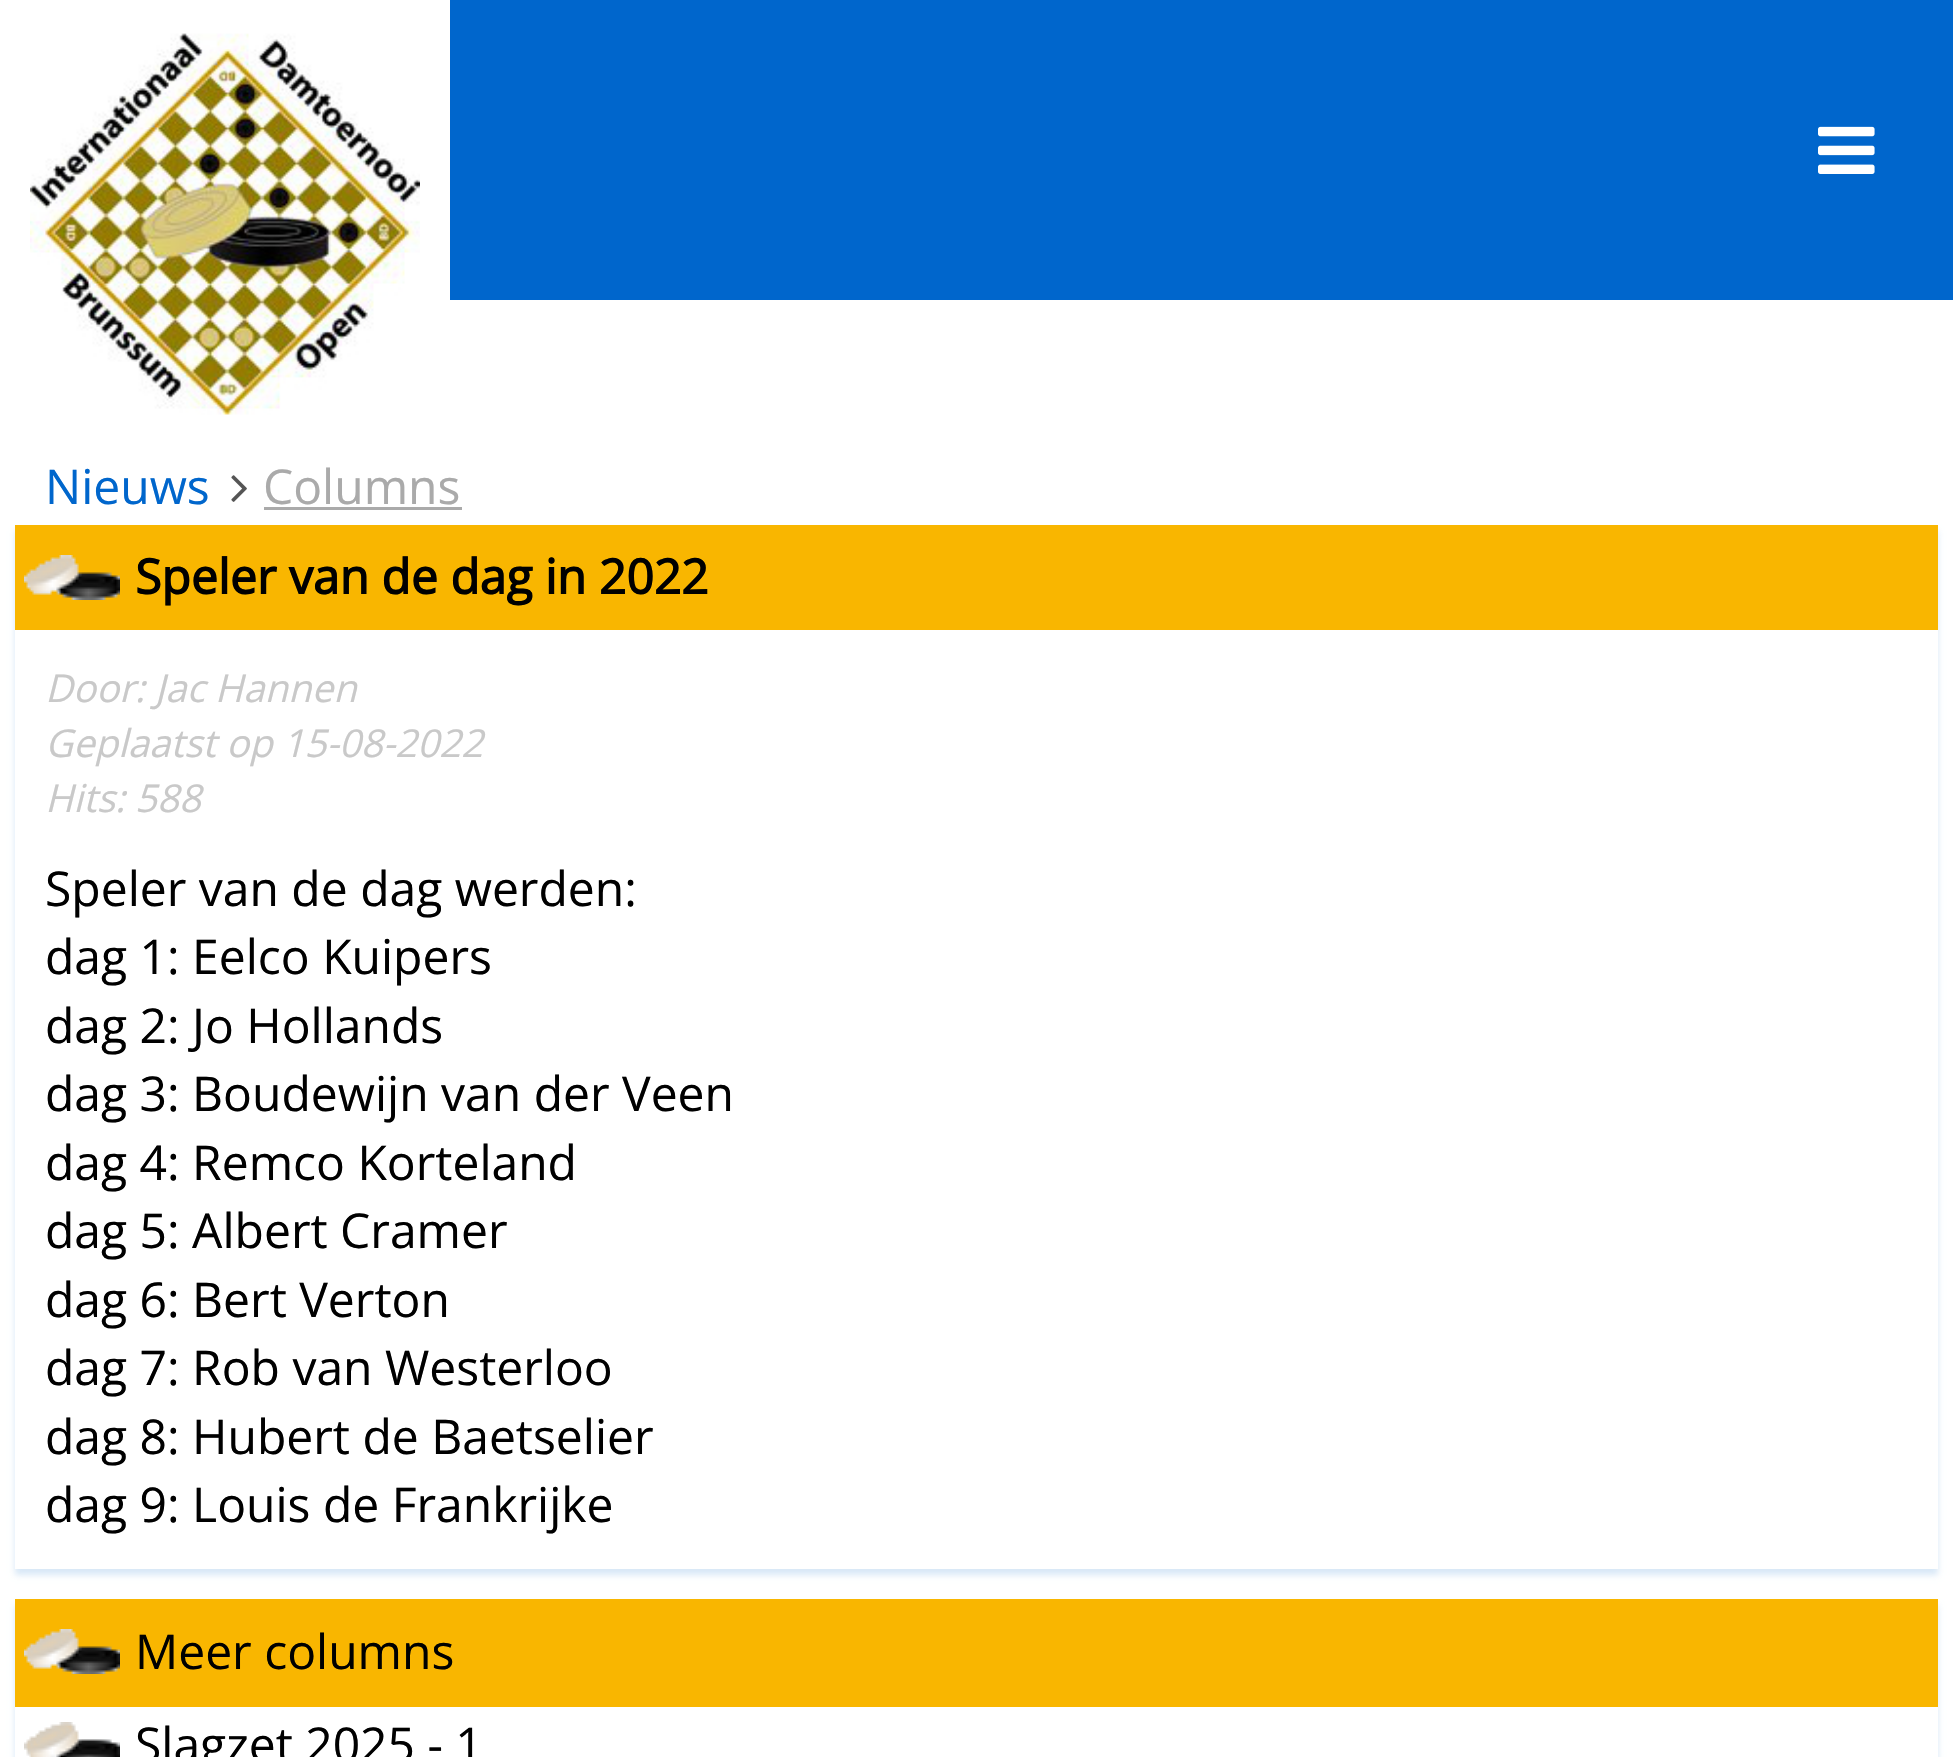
#include "include/core/SkBlurTypes.h"
#include "include/core/SkCanvas.h"
#include "include/core/SkData.h"
#include "include/core/SkFont.h"
#include "include/core/SkFontMgr.h"
#include "include/core/SkImage.h"
#include "include/core/SkMaskFilter.h"
#include "include/core/SkPaint.h"
#include "include/core/SkPathBuilder.h"
#include "include/core/SkTextBlob.h"
#include "include/effects/SkDashPathEffect.h"
#include "include/effects/SkGradientShader.h"
#include "include/utils/SkParsePath.h"

extern sk_sp<SkFontMgr> fontMgr;

void draw(SkCanvas* canvas) {
  SkPaint p;
  p.setAntiAlias(true);
  canvas->clear(SK_ColorWHITE);
  canvas->drawImageRect(SkImages::DeferredFromEncodedData(SkData::MakeFromFileName("images/1.png")), SkRect::MakeLTRB(30, 33, 420, 415), SkSamplingOptions());
  p.setColor(SkColorSetRGB(0, 102, 204));
  canvas->drawRect(SkRect::MakeLTRB(450, 0, 1953, 300), p);
  canvas->drawImageRect(SkImages::DeferredFromEncodedData(SkData::MakeFromFileName("images/2.png")), SkRect::MakeLTRB(1818, 126, 1875, 174), SkSamplingOptions());
  canvas->drawImageRect(SkImages::DeferredFromEncodedData(SkData::MakeFromFileName("images/3.png")), SkRect::MakeLTRB(231, 475, 247, 502), SkSamplingOptions());
  p.setColor(SkColorSetRGB(170, 170, 170));
  canvas->drawRect(SkRect::MakeLTRB(264, 507, 462, 510), p);
  canvas->save();
  canvas->clipPath(SkPathBuilder(SkPathFillType::kEvenOdd).moveTo(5, 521).lineTo(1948, 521).lineTo(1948, 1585).lineTo(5, 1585).close().moveTo(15, 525).lineTo(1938, 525).lineTo(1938, 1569).lineTo(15, 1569).close().detach(), true);
  p.setColor(SkColorSetARGB(38, 0, 102, 204));
  p.setMaskFilter(SkMaskFilter::MakeBlur(kNormal_SkBlurStyle, 3));
  canvas->drawRect(SkRect::MakeLTRB(15, 531, 1938, 1575), p);
  p.setMaskFilter(nullptr);
  canvas->restore();
  p.setColor(SkColorSetRGB(249, 182, 0));
  canvas->drawRect(SkRect::MakeLTRB(15, 525, 1938, 630), p);
  canvas->drawImageRect(SkImages::DeferredFromEncodedData(SkData::MakeFromFileName("images/4.png")), SkRect::MakeLTRB(24, 555, 120, 600), SkSamplingOptions());
  canvas->save();
  canvas->clipPath(SkPathBuilder(SkPathFillType::kEvenOdd).moveTo(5, 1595).lineTo(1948, 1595).lineTo(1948, 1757).lineTo(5, 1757).close().moveTo(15, 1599).lineTo(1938, 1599).lineTo(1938, 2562).lineTo(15, 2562).close().detach(), true);
  p.setColor(SkColorSetARGB(38, 0, 102, 204));
  p.setMaskFilter(SkMaskFilter::MakeBlur(kNormal_SkBlurStyle, 3));
  canvas->drawRect(SkRect::MakeLTRB(15, 1605, 1938, 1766), p);
  p.setMaskFilter(nullptr);
  canvas->restore();
  p.setColor(SkColorSetRGB(249, 182, 0));
  canvas->drawRect(SkRect::MakeLTRB(15, 1599, 1938, 1707), p);
  canvas->drawImageRect(SkImages::DeferredFromEncodedData(SkData::MakeFromFileName("images/4.png")), SkRect::MakeLTRB(24, 1629, 120, 1674), SkSamplingOptions());
  canvas->drawImageRect(SkImages::DeferredFromEncodedData(SkData::MakeFromFileName("images/5.png")), SkRect::MakeLTRB(24, 1722, 120, 1757), SkSamplingOptions());
  SkFont font1(fontMgr->matchFamilyStyle("Open Sans", SkFontStyle::Normal()), 48);
  font1.setSubpixel(true);
  p.setColor(SkColorSetRGB(0, 102, 204));
  canvas->drawString("Nieuws", 45, 504, font1, p);
  p.setColor(SkColorSetRGB(170, 170, 170));
  canvas->drawString("Columns", 263, 504, font1, p);
  SkFont font2(fontMgr->matchFamilyStyle("Open Sans", SkFontStyle::Bold()), 48);
  font2.setSubpixel(true);
  p.setColor(SK_ColorBLACK);
  canvas->drawString("Speler van de dag in 2022", 135, 594, font2, p);
  SkFont font3(fontMgr->matchFamilyStyle("Open Sans", SkFontStyle::Italic()), 38.4f);
  font3.setSubpixel(true);
  p.setColor(SkColorSetRGB(201, 201, 201));
  canvas->drawString("Door: Jac Hannen", 45, 702, font3, p);
  canvas->drawString("Geplaatst op 15-08-2022", 45, 757, font3, p);
  canvas->drawString("Hits: 588", 45, 812, font3, p);
  p.setColor(SK_ColorBLACK);
  canvas->drawString("Speler van de dag werden:", 45, 906, font1, p);
  canvas->drawString("dag 1: Eelco Kuipers", 45, 974, font1, p);
  canvas->drawString("dag 2: Jo Hollands", 45, 1043, font1, p);
  canvas->drawString("dag 3: Boudewijn van der Veen", 45, 1111, font1, p);
  canvas->drawString("dag 4: Remco Korteland", 45, 1180, font1, p);
  canvas->drawString("dag 5: Albert Cramer", 45, 1248, font1, p);
  canvas->drawString("dag 6: Bert Verton", 45, 1317, font1, p);
  canvas->drawString("dag 7: Rob van Westerloo", 45, 1385, font1, p);
  canvas->drawString("dag 8: Hubert de Baetselier", 45, 1454, font1, p);
  canvas->drawString("dag 9: Louis de Frankrijke", 45, 1522, font1, p);
  canvas->drawString("Meer columns", 135, 1669, font1, p);
  canvas->drawString("Slagzet 2025 - 1", 135, 1762, font1, p);
}
